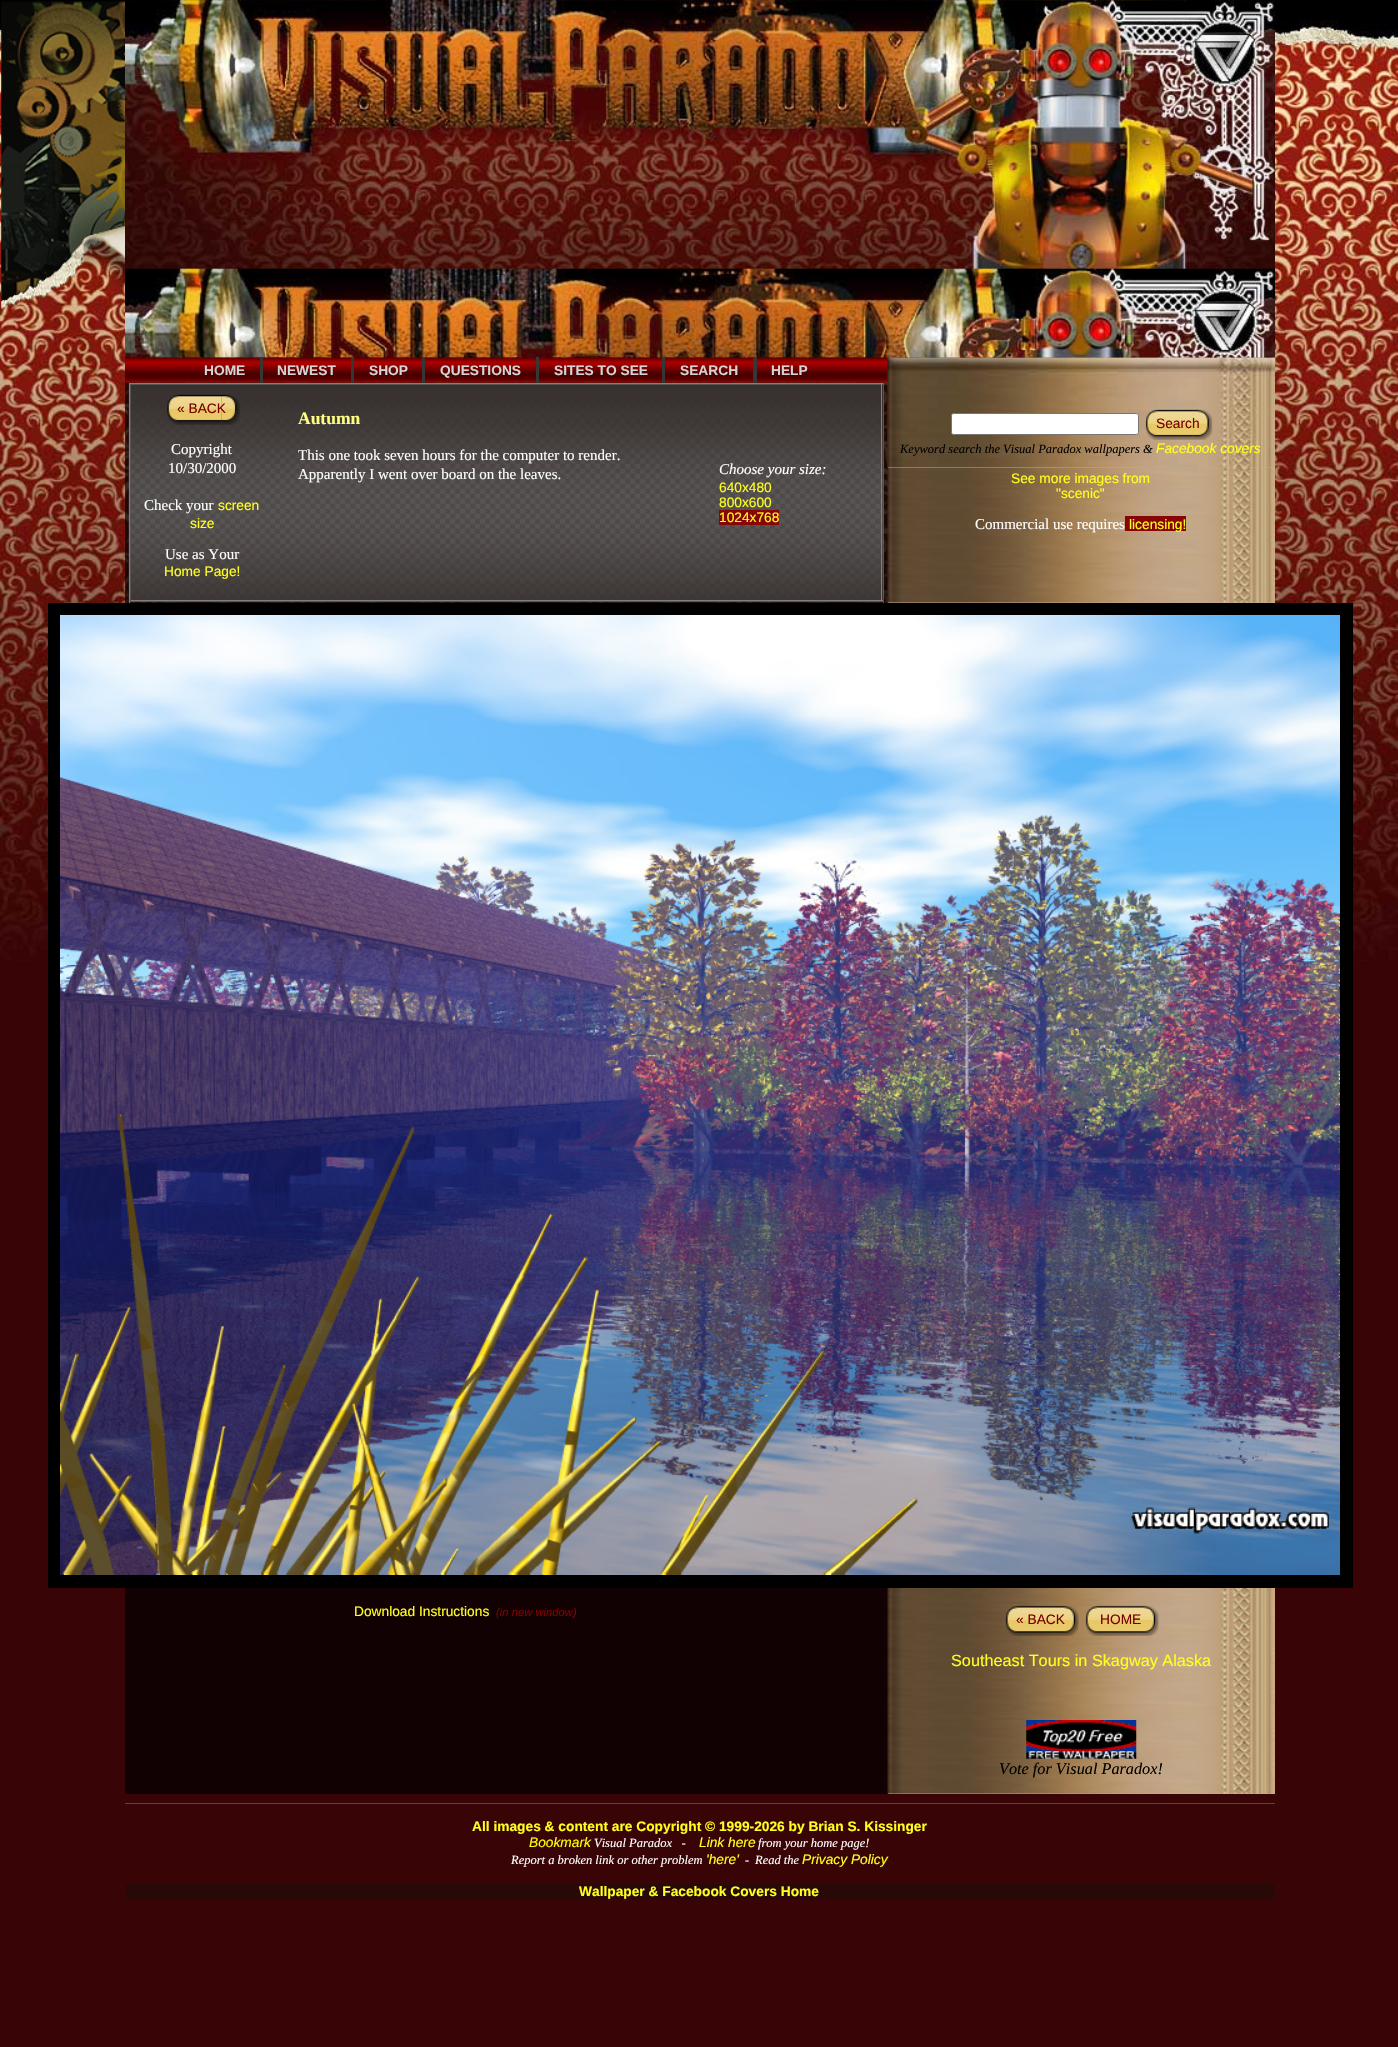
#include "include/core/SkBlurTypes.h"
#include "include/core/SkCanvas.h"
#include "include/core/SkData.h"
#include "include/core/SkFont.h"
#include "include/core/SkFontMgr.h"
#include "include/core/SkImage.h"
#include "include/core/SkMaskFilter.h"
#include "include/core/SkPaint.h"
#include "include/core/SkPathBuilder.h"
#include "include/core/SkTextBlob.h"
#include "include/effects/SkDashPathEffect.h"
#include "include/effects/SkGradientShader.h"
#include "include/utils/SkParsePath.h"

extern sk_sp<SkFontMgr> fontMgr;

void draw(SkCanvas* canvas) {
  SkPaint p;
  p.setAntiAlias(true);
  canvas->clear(SkColorSetRGB(57, 4, 6));
  canvas->drawImageRect(SkImages::DeferredFromEncodedData(SkData::MakeFromFileName("images/1.png")), SkRect::MakeLTRB(0, 0, 1398, 961), SkSamplingOptions());
  canvas->drawImageRect(SkImages::DeferredFromEncodedData(SkData::MakeFromFileName("images/2.png")), SkRect::MakeLTRB(1, 1, 125, 314), SkSamplingOptions());
  p.setColor(SkColorSetARGB(179, 0, 0, 0));
  canvas->drawRect(SkRect::MakeLTRB(125, 357, 888, 603), p);
  p.setColor(SkColorSetRGB(197, 170, 141));
  canvas->drawRect(SkRect::MakeLTRB(888, 602, 1275, 603), p);
  canvas->drawImageRect(SkImages::DeferredFromEncodedData(SkData::MakeFromFileName("images/8.png")), SkRect::MakeLTRB(887, 357, 1275, 603), SkSamplingOptions());
  canvas->drawRect(SkRect::MakeLTRB(888, 467, 1275, 468), p);
  canvas->drawImageRect(SkImages::DeferredFromEncodedData(SkData::MakeFromFileName("images/9.png")), SkRect::MakeLTRB(887, 357, 1275, 468), SkSamplingOptions());
  canvas->drawImageRect(SkImages::DeferredFromEncodedData(SkData::MakeFromFileName("images/3.png")), SkRect::MakeLTRB(125, 0, 1275, 358), SkSamplingOptions());
  canvas->drawImageRect(SkImages::DeferredFromEncodedData(SkData::MakeFromFileName("images/5.png")), SkRect::MakeLTRB(128, 382, 884, 603), SkSamplingOptions());
  canvas->drawImageRect(SkImages::DeferredFromEncodedData(SkData::MakeFromFileName("images/4.png")), SkRect::MakeLTRB(125, 357, 888, 383), SkSamplingOptions());
  p.setColor(SkColorSetRGB(54, 54, 54));
  canvas->drawRect(SkRect::MakeLTRB(260, 357, 263, 383), p);
  canvas->drawRect(SkRect::MakeLTRB(351, 357, 354, 383), p);
  canvas->drawRect(SkRect::MakeLTRB(422, 357, 425, 383), p);
  canvas->drawRect(SkRect::MakeLTRB(536, 357, 539, 383), p);
  canvas->drawRect(SkRect::MakeLTRB(662, 357, 665, 383), p);
  canvas->drawRect(SkRect::MakeLTRB(753, 357, 757, 383), p);
  p.setColor(SkColorSetRGB(128, 128, 128));
  canvas->drawRect(SkRect::MakeLTRB(129, 383, 884, 384), p);
  p.setColor(SkColorSetRGB(85, 85, 85));
  canvas->drawRect(SkRect::MakeLTRB(883, 383, 884, 603), p);
  canvas->drawRect(SkRect::MakeLTRB(129, 601, 884, 602), p);
  p.setColor(SkColorSetRGB(128, 128, 128));
  canvas->drawRect(SkRect::MakeLTRB(129, 383, 130, 603), p);
  p.setColor(SkColorSetRGB(85, 85, 85));
  canvas->drawRect(SkRect::MakeLTRB(130, 384, 883, 385), p);
  p.setColor(SkColorSetRGB(128, 128, 128));
  canvas->drawRect(SkRect::MakeLTRB(881, 384, 882, 601), p);
  canvas->drawRect(SkRect::MakeLTRB(130, 600, 883, 601), p);
  p.setColor(SkColorSetRGB(85, 85, 85));
  canvas->drawRect(SkRect::MakeLTRB(130, 384, 131, 601), p);
  canvas->drawImageRect(SkImages::DeferredFromEncodedData(SkData::MakeFromFileName("images/6.png")), SkRect::MakeLTRB(167, 394, 222, 425), SkSamplingOptions());
  canvas->drawImageRect(SkImages::DeferredFromEncodedData(SkData::MakeFromFileName("images/7.png")), SkRect::MakeLTRB(221, 394, 240, 425), SkSamplingOptions());
  p.setColor(SkColorSetRGB(136, 5, 5));
  canvas->drawRect(SkRect::MakeLTRB(719, 510, 779, 525), p);
  p.setColor(SK_ColorWHITE);
  canvas->drawRoundRect(SkRect::MakeLTRB(951.5f, 413.5f, 1138.5f, 434.5f), 2, 2, p);
  p.setStyle(SkPaint::kStroke_Style);
  p.setStrokeWidth(1);
  p.setColor(SkColorSetRGB(118, 118, 118));
  canvas->drawRoundRect(SkRect::MakeLTRB(951.5f, 413.5f, 1138.5f, 434.5f), 2, 2, p);
  canvas->drawImageRect(SkImages::DeferredFromEncodedData(SkData::MakeFromFileName("images/10.png")), SkRect::MakeLTRB(1145, 409, 1194, 440), SkSamplingOptions());
  canvas->drawImageRect(SkImages::DeferredFromEncodedData(SkData::MakeFromFileName("images/11.png")), SkRect::MakeLTRB(1193, 409, 1213, 440), SkSamplingOptions());
  p.setStyle(SkPaint::kFill_Style);
  p.setColor(SkColorSetRGB(136, 5, 5));
  canvas->drawRect(SkRect::MakeLTRB(1125, 516, 1186, 531), p);
  p.setStyle(SkPaint::kStroke_Style);
  p.setStrokeWidth(13);
  p.setColor(SK_ColorBLACK);
  canvas->drawRect(SkRect::MakeLTRB(54.5f, 609.5f, 1346.5f, 1581.5f), p);
  canvas->drawImageRect(SkImages::DeferredFromEncodedData(SkData::MakeFromFileName("images/12.png")), SkRect::MakeLTRB(60, 615, 1340, 1575), SkSamplingOptions());
  p.setStyle(SkPaint::kFill_Style);
  p.setColor(SkColorSetRGB(17, 1, 2));
  canvas->drawRect(SkRect::MakeLTRB(125, 1588, 888, 1794), p);
  p.setColor(SkColorSetRGB(197, 170, 141));
  canvas->drawRect(SkRect::MakeLTRB(888, 1793, 1275, 1794), p);
  canvas->drawImageRect(SkImages::DeferredFromEncodedData(SkData::MakeFromFileName("images/13.png")), SkRect::MakeLTRB(887, 1588, 1275, 1794), SkSamplingOptions());
  canvas->drawImageRect(SkImages::DeferredFromEncodedData(SkData::MakeFromFileName("images/14.png")), SkRect::MakeLTRB(1005, 1605, 1060, 1636), SkSamplingOptions());
  canvas->drawImageRect(SkImages::DeferredFromEncodedData(SkData::MakeFromFileName("images/15.png")), SkRect::MakeLTRB(1060, 1605, 1079, 1636), SkSamplingOptions());
  canvas->drawImageRect(SkImages::DeferredFromEncodedData(SkData::MakeFromFileName("images/16.png")), SkRect::MakeLTRB(1085, 1605, 1140, 1636), SkSamplingOptions());
  canvas->drawImageRect(SkImages::DeferredFromEncodedData(SkData::MakeFromFileName("images/17.png")), SkRect::MakeLTRB(1140, 1605, 1159, 1636), SkSamplingOptions());
  canvas->drawImageRect(SkImages::DeferredFromEncodedData(SkData::MakeFromFileName("images/18.png")), SkRect::MakeLTRB(1026, 1720, 1137, 1759), SkSamplingOptions());
  p.setColor(SkColorSetRGB(255, 0, 0));
  canvas->drawRect(SkRect::MakeLTRB(125, 1803, 1275, 1804), p);
  p.setColor(SkColorSetRGB(40, 9, 8));
  canvas->drawRect(SkRect::MakeLTRB(125, 1884, 1275, 1899), p);
  SkFont font1(fontMgr->matchFamilyStyle("Liberation Sans", SkFontStyle::Bold()), 13.75f);
  font1.setSubpixel(true);
  p.setColor(SkColorSetRGB(212, 212, 212));
  canvas->drawString("HOME", 204, 375, font1, p);
  canvas->drawString("NEWEST", 277, 375, font1, p);
  canvas->drawString("SHOP", 369, 375, font1, p);
  canvas->drawString("QUESTIONS", 440, 375, font1, p);
  canvas->drawString("SITES TO SEE", 554, 375, font1, p);
  canvas->drawString("SEARCH", 680, 375, font1, p);
  canvas->drawString("HELP", 771, 375, font1, p);
  SkFont font2(fontMgr->matchFamilyStyle("Liberation Sans", SkFontStyle::Normal()), 13.75f);
  font2.setSubpixel(true);
  p.setColor(SkColorSetRGB(117, 0, 0));
  canvas->drawString("« BACK", 177, 413, font2, p);
  SkFont font3(fontMgr->matchFamilyStyle("Liberation Serif", SkFontStyle::Normal()), 15);
  font3.setSubpixel(true);
  p.setColor(SK_ColorWHITE);
  canvas->drawString("Copyright", 171, 454, font3, p);
  canvas->drawString("10/30/2000", 168, 473, font3, p);
  canvas->drawString("Check your", 144, 510, font3, p);
  p.setColor(SkColorSetRGB(255, 255, 32));
  canvas->drawString("screen", 218, 510, font2, p);
  canvas->drawString("size", 190, 528, font2, p);
  p.setColor(SK_ColorWHITE);
  canvas->drawString("Use as Your", 165, 559, font3, p);
  p.setColor(SkColorSetRGB(255, 255, 32));
  canvas->drawString("Home Page!", 164, 576, font2, p);
  SkFont font4(fontMgr->matchFamilyStyle("Liberation Serif", SkFontStyle::Bold()), 17.5f);
  font4.setSubpixel(true);
  p.setColor(SkColorSetRGB(255, 255, 128));
  canvas->drawString("Autumn", 298, 424, font4, p);
  p.setColor(SK_ColorWHITE);
  canvas->drawString("This one took seven hours for the computer to render.", 298, 460, font3, p);
  canvas->drawString("Apparently I went over board on the leaves.", 298, 479, font3, p);
  SkFont font5(fontMgr->matchFamilyStyle("Liberation Serif", SkFontStyle::Italic()), 15);
  font5.setSubpixel(true);
  canvas->drawString("Choose your size:", 719, 474, font5, p);
  p.setColor(SkColorSetRGB(255, 255, 32));
  canvas->drawString("640x480", 719, 492, font2, p);
  canvas->drawString("800x600", 719, 507, font2, p);
  canvas->drawString("1024x768", 719, 522, font2, p);
  p.setColor(SkColorSetRGB(117, 0, 0));
  canvas->drawString("Search", 1156, 428, font2, p);
  SkFont font6(fontMgr->matchFamilyStyle("Liberation Serif", SkFontStyle::Italic()), 12.5f);
  font6.setSubpixel(true);
  p.setColor(SK_ColorBLACK);
  canvas->drawString("Keyword search the Visual Paradox wallpapers &", 900, 453, font6, p);
  SkFont font7(fontMgr->matchFamilyStyle("Liberation Sans", SkFontStyle::Italic()), 13.75f);
  font7.setSubpixel(true);
  p.setColor(SkColorSetRGB(255, 255, 32));
  canvas->drawString("Facebook covers", 1156, 453, font7, p);
  canvas->drawString("See more images from", 1011, 483, font2, p);
  canvas->drawString("\"scenic\"", 1056, 498, font2, p);
  p.setColor(SK_ColorWHITE);
  canvas->drawString("Commercial use requires", 975, 529, font3, p);
  p.setColor(SkColorSetRGB(255, 255, 32));
  canvas->drawString("licensing!", 1129, 529, font2, p);
  canvas->drawString("Download Instructions", 354, 1616, font2, p);
  SkFont font8(fontMgr->matchFamilyStyle("Liberation Sans", SkFontStyle::Italic()), 11.25f);
  font8.setSubpixel(true);
  p.setColor(SkColorSetRGB(128, 0, 0));
  canvas->drawString("(in new window)", 496, 1616, font8, p);
  p.setColor(SkColorSetRGB(117, 0, 0));
  canvas->drawString("« BACK", 1016, 1624, font2, p);
  canvas->drawString("HOME", 1100, 1624, font2, p);
  SkFont font9(fontMgr->matchFamilyStyle("Liberation Sans", SkFontStyle::Normal()), 16.25f);
  font9.setSubpixel(true);
  p.setColor(SkColorSetRGB(255, 255, 32));
  canvas->drawString("Southeast Tours in Skagway Alaska", 951, 1666, font9, p);
  SkFont font10(fontMgr->matchFamilyStyle("Liberation Serif", SkFontStyle::Italic()), 16.25f);
  font10.setSubpixel(true);
  p.setColor(SK_ColorBLACK);
  canvas->drawString("Vote for Visual Paradox!", 999, 1774, font10, p);
  p.setColor(SkColorSetRGB(255, 255, 32));
  canvas->drawString("All images & content are Copyright © 1999-2026 by Brian S. Kissinger", 472, 1831, font1, p);
  p.setColor(SkColorSetRGB(255, 255, 0));
  canvas->drawString("Bookmark", 529, 1847, font7, p);
  p.setColor(SK_ColorWHITE);
  canvas->drawString("Visual Paradox   -", 594, 1847, font6, p);
  p.setColor(SkColorSetRGB(255, 255, 32));
  canvas->drawString("Link here", 699, 1847, font7, p);
  p.setColor(SK_ColorWHITE);
  canvas->drawString("from your home page!", 758, 1847, font6, p);
  canvas->drawString("Report a broken link or other problem", 511, 1864, font6, p);
  p.setColor(SkColorSetRGB(255, 255, 32));
  canvas->drawString("'here'", 706, 1864, font7, p);
  p.setColor(SK_ColorWHITE);
  canvas->drawString("-", 745, 1864, font6, p);
  canvas->drawString("Read the", 755, 1864, font6, p);
  p.setColor(SkColorSetRGB(255, 255, 32));
  canvas->drawString("Privacy Policy", 802, 1864, font7, p);
  canvas->drawString("Wallpaper & Facebook Covers Home", 579, 1896, font1, p);
}
